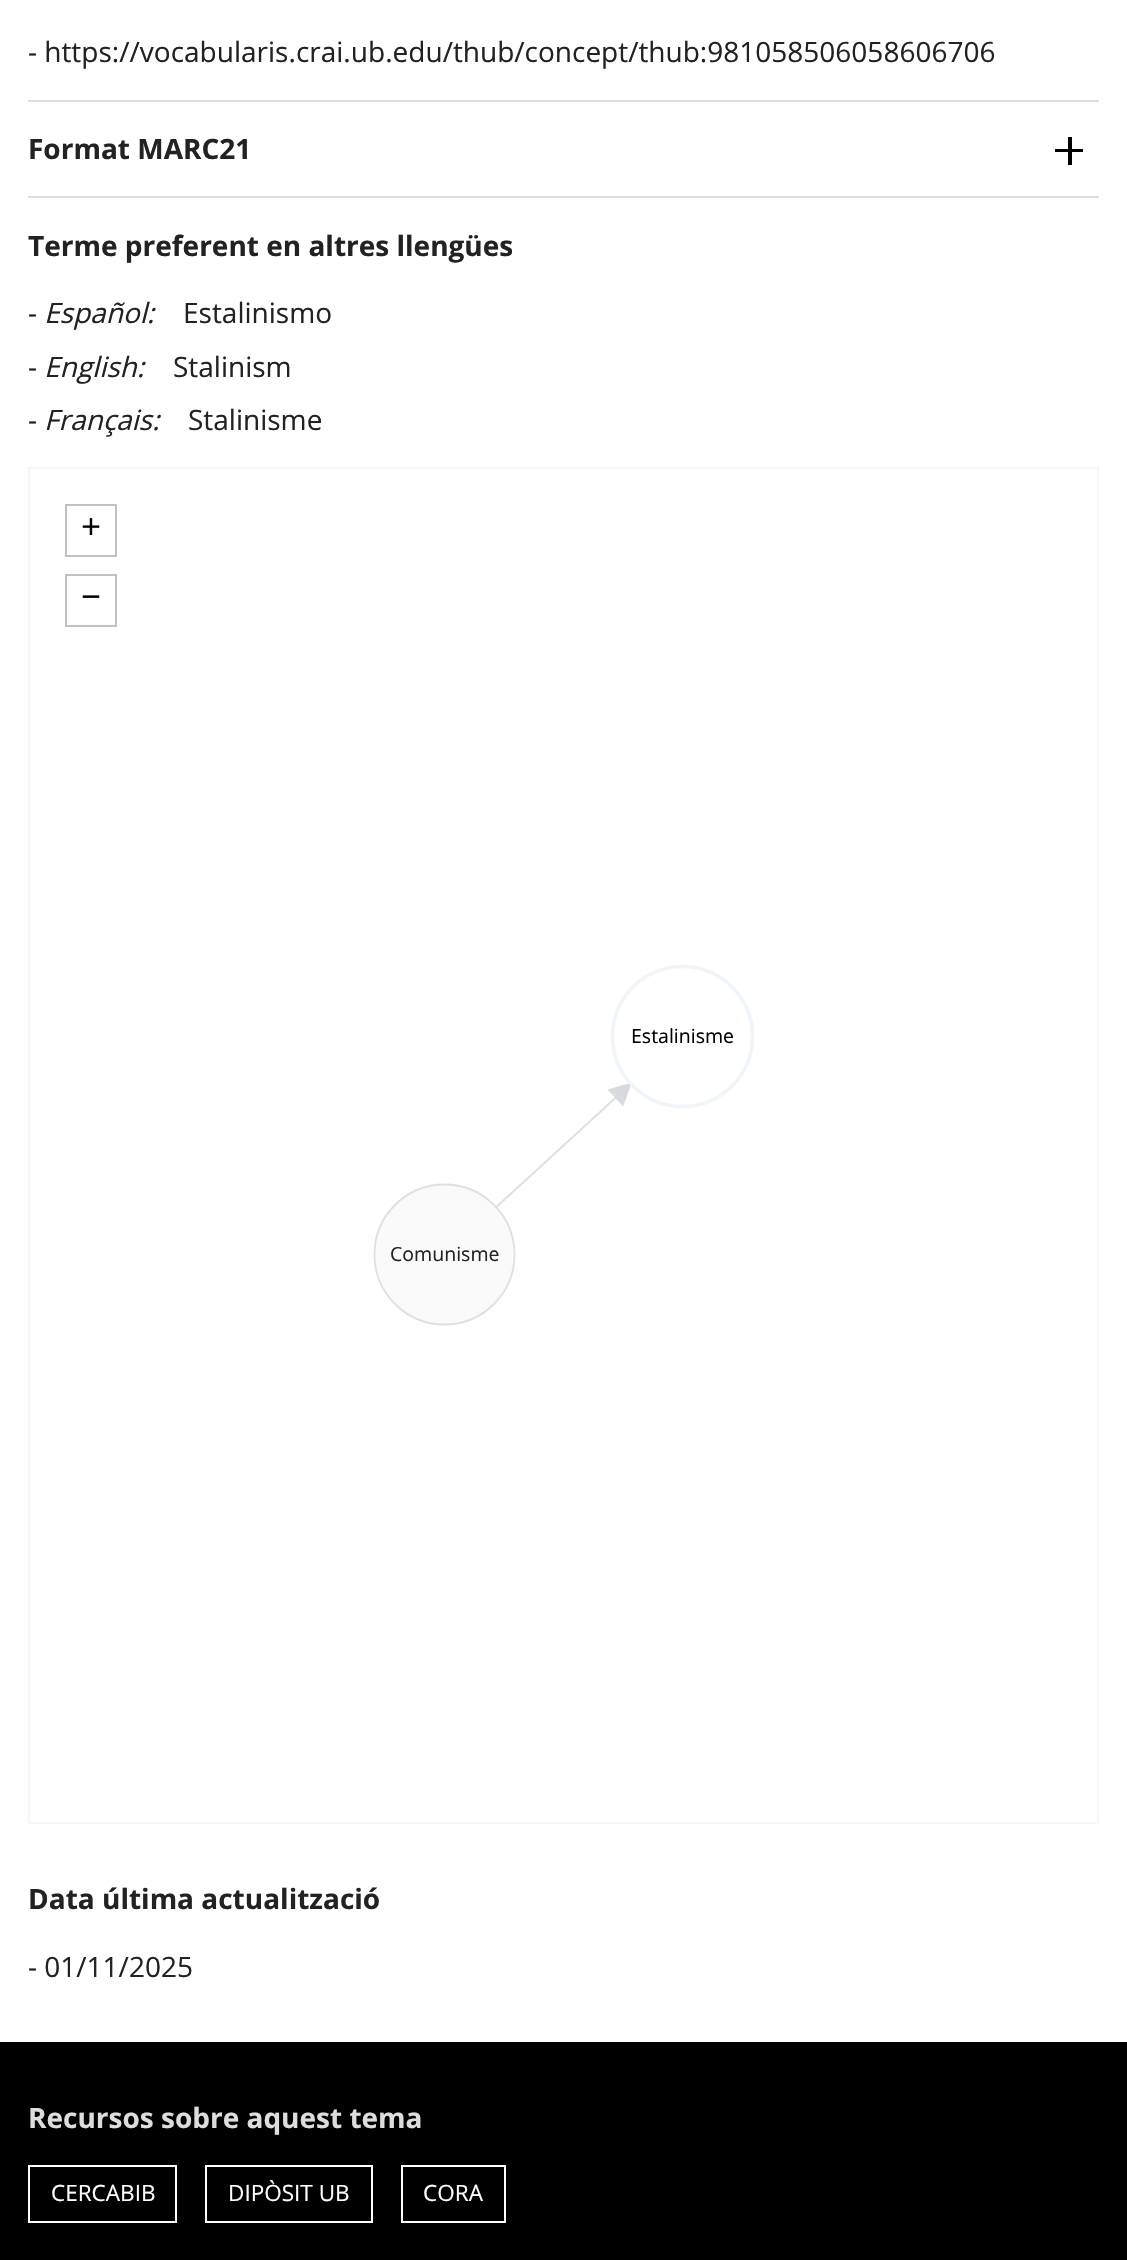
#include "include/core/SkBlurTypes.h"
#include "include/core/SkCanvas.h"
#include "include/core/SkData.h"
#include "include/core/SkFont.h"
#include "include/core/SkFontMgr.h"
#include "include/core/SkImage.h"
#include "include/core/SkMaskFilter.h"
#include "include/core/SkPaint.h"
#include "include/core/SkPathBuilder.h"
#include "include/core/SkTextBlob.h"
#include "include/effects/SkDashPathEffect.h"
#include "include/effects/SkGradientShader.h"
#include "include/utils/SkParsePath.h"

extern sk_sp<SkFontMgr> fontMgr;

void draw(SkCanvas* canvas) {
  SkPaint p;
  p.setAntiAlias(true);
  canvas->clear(SK_ColorWHITE);
  p.setColor(SkColorSetRGB(221, 221, 221));
  canvas->drawRect(SkRect::MakeLTRB(28, 100, 1099, 102), p);
  p.setColor(SK_ColorBLACK);
  canvas->drawRect(SkRect::MakeLTRB(1068, 137, 1072, 165), p);
  canvas->drawRect(SkRect::MakeLTRB(1055, 149, 1083, 152), p);
  p.setColor(SkColorSetRGB(221, 221, 221));
  canvas->drawRect(SkRect::MakeLTRB(28, 196, 1099, 198), p);
  p.setStyle(SkPaint::kStroke_Style);
  p.setStrokeWidth(2);
  p.setColor(SkColorSetRGB(247, 247, 247));
  canvas->drawRect(SkRect::MakeLTRB(29, 468, 1098, 1823), p);
  p.setColor(SkColorSetRGB(193, 193, 193));
  canvas->drawRect(SkRect::MakeLTRB(66, 505, 116, 556), p);
  canvas->drawRect(SkRect::MakeLTRB(66, 575, 116, 626), p);
  p.setStrokeWidth(1.8f);
  p.setColor(SkColorSetRGB(224, 224, 224));
  canvas->drawPath(SkPathBuilder().moveTo(444.5f, 1254.5f).lineTo(682.5f, 1036.5f).detach(), p);
  p.setStyle(SkPaint::kFill_Style);
  p.setColor(SkColorSetRGB(215, 219, 224));
  canvas->drawPath(SkPathBuilder().moveTo(607.5f, 1089.5f).lineTo(632, 1082.5f).lineTo(623, 1106.5f).detach(), p);
  p.setColor(SK_ColorWHITE);
  canvas->drawCircle(682.5f, 1036.5f, 70, p);
  p.setStyle(SkPaint::kStroke_Style);
  p.setStrokeWidth(3.5f);
  p.setColor(SkColorSetRGB(240, 245, 250));
  canvas->drawCircle(682.5f, 1036.5f, 70, p);
  p.setStyle(SkPaint::kFill_Style);
  p.setColor(SkColorSetRGB(250, 250, 250));
  canvas->drawCircle(444.5f, 1254.5f, 70, p);
  p.setStyle(SkPaint::kStroke_Style);
  p.setStrokeWidth(1.8f);
  p.setColor(SkColorSetRGB(224, 224, 224));
  canvas->drawCircle(444.5f, 1254.5f, 70, p);
  p.setStyle(SkPaint::kFill_Style);
  p.setColor(SK_ColorBLACK);
  canvas->drawRect(SkRect::MakeLTRB(0, 2042, 1127, 2260), p);
  p.setStyle(SkPaint::kStroke_Style);
  p.setStrokeWidth(2);
  p.setColor(SK_ColorWHITE);
  canvas->drawRect(SkRect::MakeLTRB(29, 2166, 176, 2222), p);
  canvas->drawRect(SkRect::MakeLTRB(206, 2166, 372, 2222), p);
  canvas->drawRect(SkRect::MakeLTRB(402, 2166, 505, 2222), p);
  SkFont font1(fontMgr->matchFamilyStyle("Open Sans", SkFontStyle::Normal()), 28);
  font1.setSubpixel(true);
  p.setStyle(SkPaint::kFill_Style);
  p.setColor(SkColorSetRGB(34, 34, 34));
  canvas->drawString("- https://vocabularis.crai.ub.edu/thub/concept/thub:981058506058606706", 28, 62, font1, p);
  SkFont font2(fontMgr->matchFamilyStyle("Open Sans", SkFontStyle::Bold()), 28);
  font2.setSubpixel(true);
  canvas->drawString("Format MARC21", 28, 159, font2, p);
  canvas->drawString("Terme preferent en altres llengües", 28, 256, font2, p);
  canvas->drawString("-", 28, 323, font1, p);
  SkFont font3(fontMgr->matchFamilyStyle("Open Sans", SkFontStyle::Italic()), 28);
  font3.setSubpixel(true);
  canvas->drawString("Español:", 44, 323, font3, p);
  canvas->drawString("Estalinismo", 183, 323, font1, p);
  canvas->drawString("-", 28, 377, font1, p);
  canvas->drawString("English:", 44, 377, font3, p);
  canvas->drawString("Stalinism", 173, 377, font1, p);
  canvas->drawString("-", 28, 430, font1, p);
  canvas->drawString("Français:", 44, 430, font3, p);
  canvas->drawString("Stalinisme", 188, 430, font1, p);
  SkFont font4(fontMgr->matchFamilyStyle("Open Sans", SkFontStyle::Normal()), 35);
  font4.setSubpixel(true);
  p.setColor(SK_ColorBLACK);
  canvas->drawString("+", 81, 539, font4, p);
  canvas->drawString("−", 81, 609, font4, p);
  SkFont font5(fontMgr->matchFamilyStyle("Open Sans", SkFontStyle::Normal()), 19.5f);
  font5.setSubpixel(true);
  canvas->drawString("Estalinisme", 631, 1043, font5, p);
  p.setColor(SkColorSetRGB(34, 34, 34));
  canvas->drawString("Comunisme", 390, 1261, font5, p);
  canvas->drawString("Data última actualització", 28, 1909, font2, p);
  canvas->drawString("- 01/11/2025", 28, 1977, font1, p);
  p.setColor(SkColorSetRGB(221, 221, 221));
  canvas->drawString("Recursos sobre aquest tema", 28, 2128, font2, p);
  SkFont font6(fontMgr->matchFamilyStyle("Open Sans", SkFontStyle::Normal()), 22.5f);
  font6.setSubpixel(true);
  p.setColor(SK_ColorWHITE);
  canvas->drawString("CERCABIB", 51, 2201, font6, p);
  canvas->drawString("DIPÒSIT UB", 228, 2201, font6, p);
  canvas->drawString("CORA", 423, 2201, font6, p);
}
